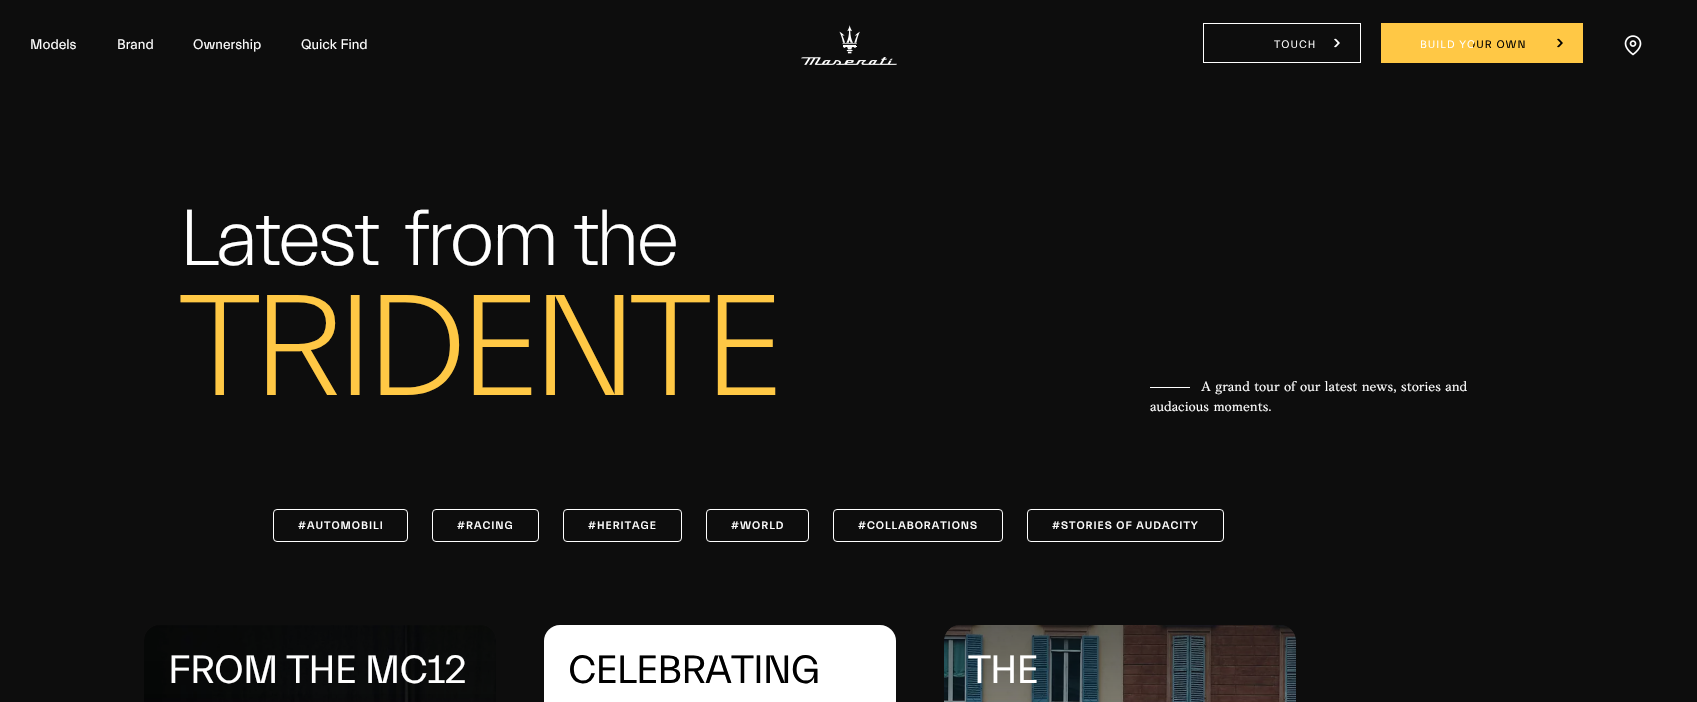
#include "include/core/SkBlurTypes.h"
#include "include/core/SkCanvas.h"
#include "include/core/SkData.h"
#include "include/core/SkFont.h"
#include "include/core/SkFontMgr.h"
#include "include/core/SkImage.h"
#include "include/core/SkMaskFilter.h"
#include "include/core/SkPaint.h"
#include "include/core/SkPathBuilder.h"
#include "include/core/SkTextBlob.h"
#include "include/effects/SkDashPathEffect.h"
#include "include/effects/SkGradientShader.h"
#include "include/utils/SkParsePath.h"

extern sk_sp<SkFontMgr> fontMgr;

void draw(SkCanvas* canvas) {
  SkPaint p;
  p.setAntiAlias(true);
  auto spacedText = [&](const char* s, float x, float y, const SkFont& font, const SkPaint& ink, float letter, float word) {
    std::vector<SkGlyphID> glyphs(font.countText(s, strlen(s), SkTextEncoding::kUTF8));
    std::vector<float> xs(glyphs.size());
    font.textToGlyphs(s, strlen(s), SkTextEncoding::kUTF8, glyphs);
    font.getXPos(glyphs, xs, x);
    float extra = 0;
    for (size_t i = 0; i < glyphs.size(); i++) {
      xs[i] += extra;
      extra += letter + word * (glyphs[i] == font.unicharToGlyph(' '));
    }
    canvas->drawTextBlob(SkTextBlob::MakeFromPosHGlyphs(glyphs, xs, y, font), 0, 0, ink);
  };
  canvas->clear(SkColorSetRGB(13, 13, 13));
  canvas->drawImageRect(SkImages::DeferredFromEncodedData(SkData::MakeFromFileName("images/1.png")), SkRect::MakeLTRB(801, 25, 897, 65), SkSamplingOptions());
  p.setStyle(SkPaint::kStroke_Style);
  p.setStrokeWidth(1);
  p.setColor(SK_ColorWHITE);
  canvas->drawRect(SkRect::MakeLTRB(1203.5f, 23.5f, 1360.5f, 62.5f), p);
  canvas->drawImageRect(SkImages::DeferredFromEncodedData(SkData::MakeFromFileName("images/2.png")), SkRect::MakeLTRB(1334, 38, 1340, 48), SkSamplingOptions());
  p.setStyle(SkPaint::kFill_Style);
  p.setColor(SkColorSetRGB(255, 200, 69));
  canvas->drawRect(SkRect::MakeLTRB(1381, 23, 1583, 63), p);
  canvas->drawImageRect(SkImages::DeferredFromEncodedData(SkData::MakeFromFileName("images/3.png")), SkRect::MakeLTRB(1557, 38, 1563, 48), SkSamplingOptions());
  canvas->drawImageRect(SkImages::DeferredFromEncodedData(SkData::MakeFromFileName("images/4.png")), SkRect::MakeLTRB(1624, 35, 1642, 56), SkSamplingOptions());
  p.setColor(SK_ColorWHITE);
  canvas->drawRect(SkRect::MakeLTRB(1150, 387, 1190, 388), p);
  p.setStyle(SkPaint::kStroke_Style);
  canvas->drawRoundRect(SkRect::MakeLTRB(273.5f, 509.5f, 407.5f, 541.5f), 3.5f, 3.5f, p);
  canvas->drawRoundRect(SkRect::MakeLTRB(432.5f, 509.5f, 538.5f, 541.5f), 3.5f, 3.5f, p);
  canvas->drawRoundRect(SkRect::MakeLTRB(563.5f, 509.5f, 681.5f, 541.5f), 3.5f, 3.5f, p);
  canvas->drawRoundRect(SkRect::MakeLTRB(706.5f, 509.5f, 808.5f, 541.5f), 3.5f, 3.5f, p);
  canvas->drawRoundRect(SkRect::MakeLTRB(833.5f, 509.5f, 1002.5f, 541.5f), 3.5f, 3.5f, p);
  canvas->drawRoundRect(SkRect::MakeLTRB(1027.5f, 509.5f, 1223.5f, 541.5f), 3.5f, 3.5f, p);
  canvas->drawImageRect(SkImages::DeferredFromEncodedData(SkData::MakeFromFileName("images/5.png")), SkRect::MakeLTRB(144, 625, 496, 702), SkSamplingOptions());
  p.setStyle(SkPaint::kFill_Style);
  {
    const SkColor colors[] = {SkColorSetARGB(0, 13, 13, 13), SkColorSetARGB(128, 13, 13, 13)};
    const float stops[] = {0, 1};
    const SkPoint ends[] = {{320, 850}, {320, 625}};
    p.setShader(SkGradientShader::MakeLinear(ends, colors, stops, 2, SkTileMode::kClamp));
    p.setAlpha(255);
  }
  canvas->drawPath(SkPathBuilder().moveTo(144, 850).lineTo(144, 641).cubicTo(144, 632, 151, 625, 160, 625).lineTo(480, 625).cubicTo(489, 625, 496, 632, 496, 641).lineTo(496, 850).close().detach(), p);
  p.setShader(nullptr);
  p.setColor(SK_ColorWHITE);
  canvas->drawRoundRect(SkRect::MakeLTRB(544, 625, 896, 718), 16, 16, p);
  canvas->drawImageRect(SkImages::DeferredFromEncodedData(SkData::MakeFromFileName("images/6.png")), SkRect::MakeLTRB(944, 625, 1296, 702), SkSamplingOptions());
  {
    const SkColor colors[] = {SkColorSetARGB(0, 13, 13, 13), SkColorSetARGB(128, 13, 13, 13)};
    const float stops[] = {0, 1};
    const SkPoint ends[] = {{1120, 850}, {1120, 625}};
    p.setShader(SkGradientShader::MakeLinear(ends, colors, stops, 2, SkTileMode::kClamp));
    p.setAlpha(255);
  }
  canvas->drawPath(SkPathBuilder().moveTo(944, 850).lineTo(944, 641).cubicTo(944, 632, 951, 625, 960, 625).lineTo(1280, 625).cubicTo(1289, 625, 1296, 632, 1296, 641).lineTo(1296, 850).close().detach(), p);
  SkFont font1(fontMgr->matchFamilyStyle("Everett", SkFontStyle::Normal()), 14);
  font1.setSubpixel(true);
  p.setShader(nullptr);
  p.setColor(SK_ColorWHITE);
  canvas->drawString("Models", 30, 49, font1, p);
  canvas->drawString("Brand", 117, 49, font1, p);
  canvas->drawString("Ownership", 193, 49, font1, p);
  canvas->drawString("Quick Find", 301, 49, font1, p);
  SkFont font2(fontMgr->matchFamilyStyle("Everett", SkFontStyle::Normal()), 11);
  font2.setSubpixel(true);
  {
    const SkColor colors[] = {SK_ColorWHITE, SK_ColorBLACK};
    const float stops[] = {0.5f, 0.5f};
    const SkPoint ends[] = {{1322, 47}, {1225, 41}};
    p.setShader(SkGradientShader::MakeLinear(ends, colors, stops, 2, SkTileMode::kClamp));
    p.setAlpha(255);
  }
  spacedText("TOUCH", 1274, 48, font2, p, 1, 0);
  {
    const SkColor colors[] = {SK_ColorBLACK, SK_ColorWHITE};
    const float stops[] = {0.5f, 0.5f};
    const SkPoint ends[] = {{1545, 49}, {1402, 39}};
    p.setShader(SkGradientShader::MakeLinear(ends, colors, stops, 2, SkTileMode::kClamp));
    p.setAlpha(255);
  }
  spacedText("BUILD YOUR OWN", 1420, 48, font2, p, 1, 0);
  SkFont font3(fontMgr->matchFamilyStyle("Everett", SkFontStyle(300, SkFontStyle::kNormal_Width, SkFontStyle::kUpright_Slant)), 80);
  font3.setSubpixel(true);
  p.setShader(nullptr);
  p.setColor(SK_ColorWHITE);
  spacedText("Latest", 179, 265, font3, p, -3.25f, 0);
  spacedText("from the", 404, 265, font3, p, -3.25f, 0);
  SkFont font4(fontMgr->matchFamilyStyle("Everett", SkFontStyle(300, SkFontStyle::kNormal_Width, SkFontStyle::kUpright_Slant)), 145);
  font4.setSubpixel(true);
  p.setColor(SkColorSetRGB(255, 200, 69));
  spacedText("TRIDENTE", 179, 395, font4, p, -8, 0);
  SkFont font5(fontMgr->matchFamilyStyle("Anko", SkFontStyle::Normal()), 14);
  font5.setSubpixel(true);
  p.setColor(SK_ColorWHITE);
  canvas->drawString("A grand tour of our latest news, stories and", 1201, 391, font5, p);
  canvas->drawString("audacious moments.", 1150, 411, font5, p);
  SkFont font6(fontMgr->matchFamilyStyle("Everett", SkFontStyle(500, SkFontStyle::kNormal_Width, SkFontStyle::kUpright_Slant)), 11);
  font6.setSubpixel(true);
  spacedText("#AUTOMOBILI", 298, 529, font6, p, 1, 0);
  spacedText("#RACING", 457, 529, font6, p, 1, 0);
  spacedText("#HERITAGE", 588, 529, font6, p, 1, 0);
  spacedText("#WORLD", 731, 529, font6, p, 1, 0);
  spacedText("#COLLABORATIONS", 858, 529, font6, p, 1, 0);
  spacedText("#STORIES OF AUDACITY", 1052, 529, font6, p, 1, 0);
  SkFont font7(fontMgr->matchFamilyStyle("Everett", SkFontStyle::Normal()), 40);
  font7.setSubpixel(true);
  spacedText("FROM THE MC12", 168, 683, font7, p, -1, 0);
  p.setColor(SK_ColorBLACK);
  spacedText("CELEBRATING", 568, 683, font7, p, -1, 0);
  p.setColor(SK_ColorWHITE);
  spacedText("THE", 968, 683, font7, p, -1, 0);
}
